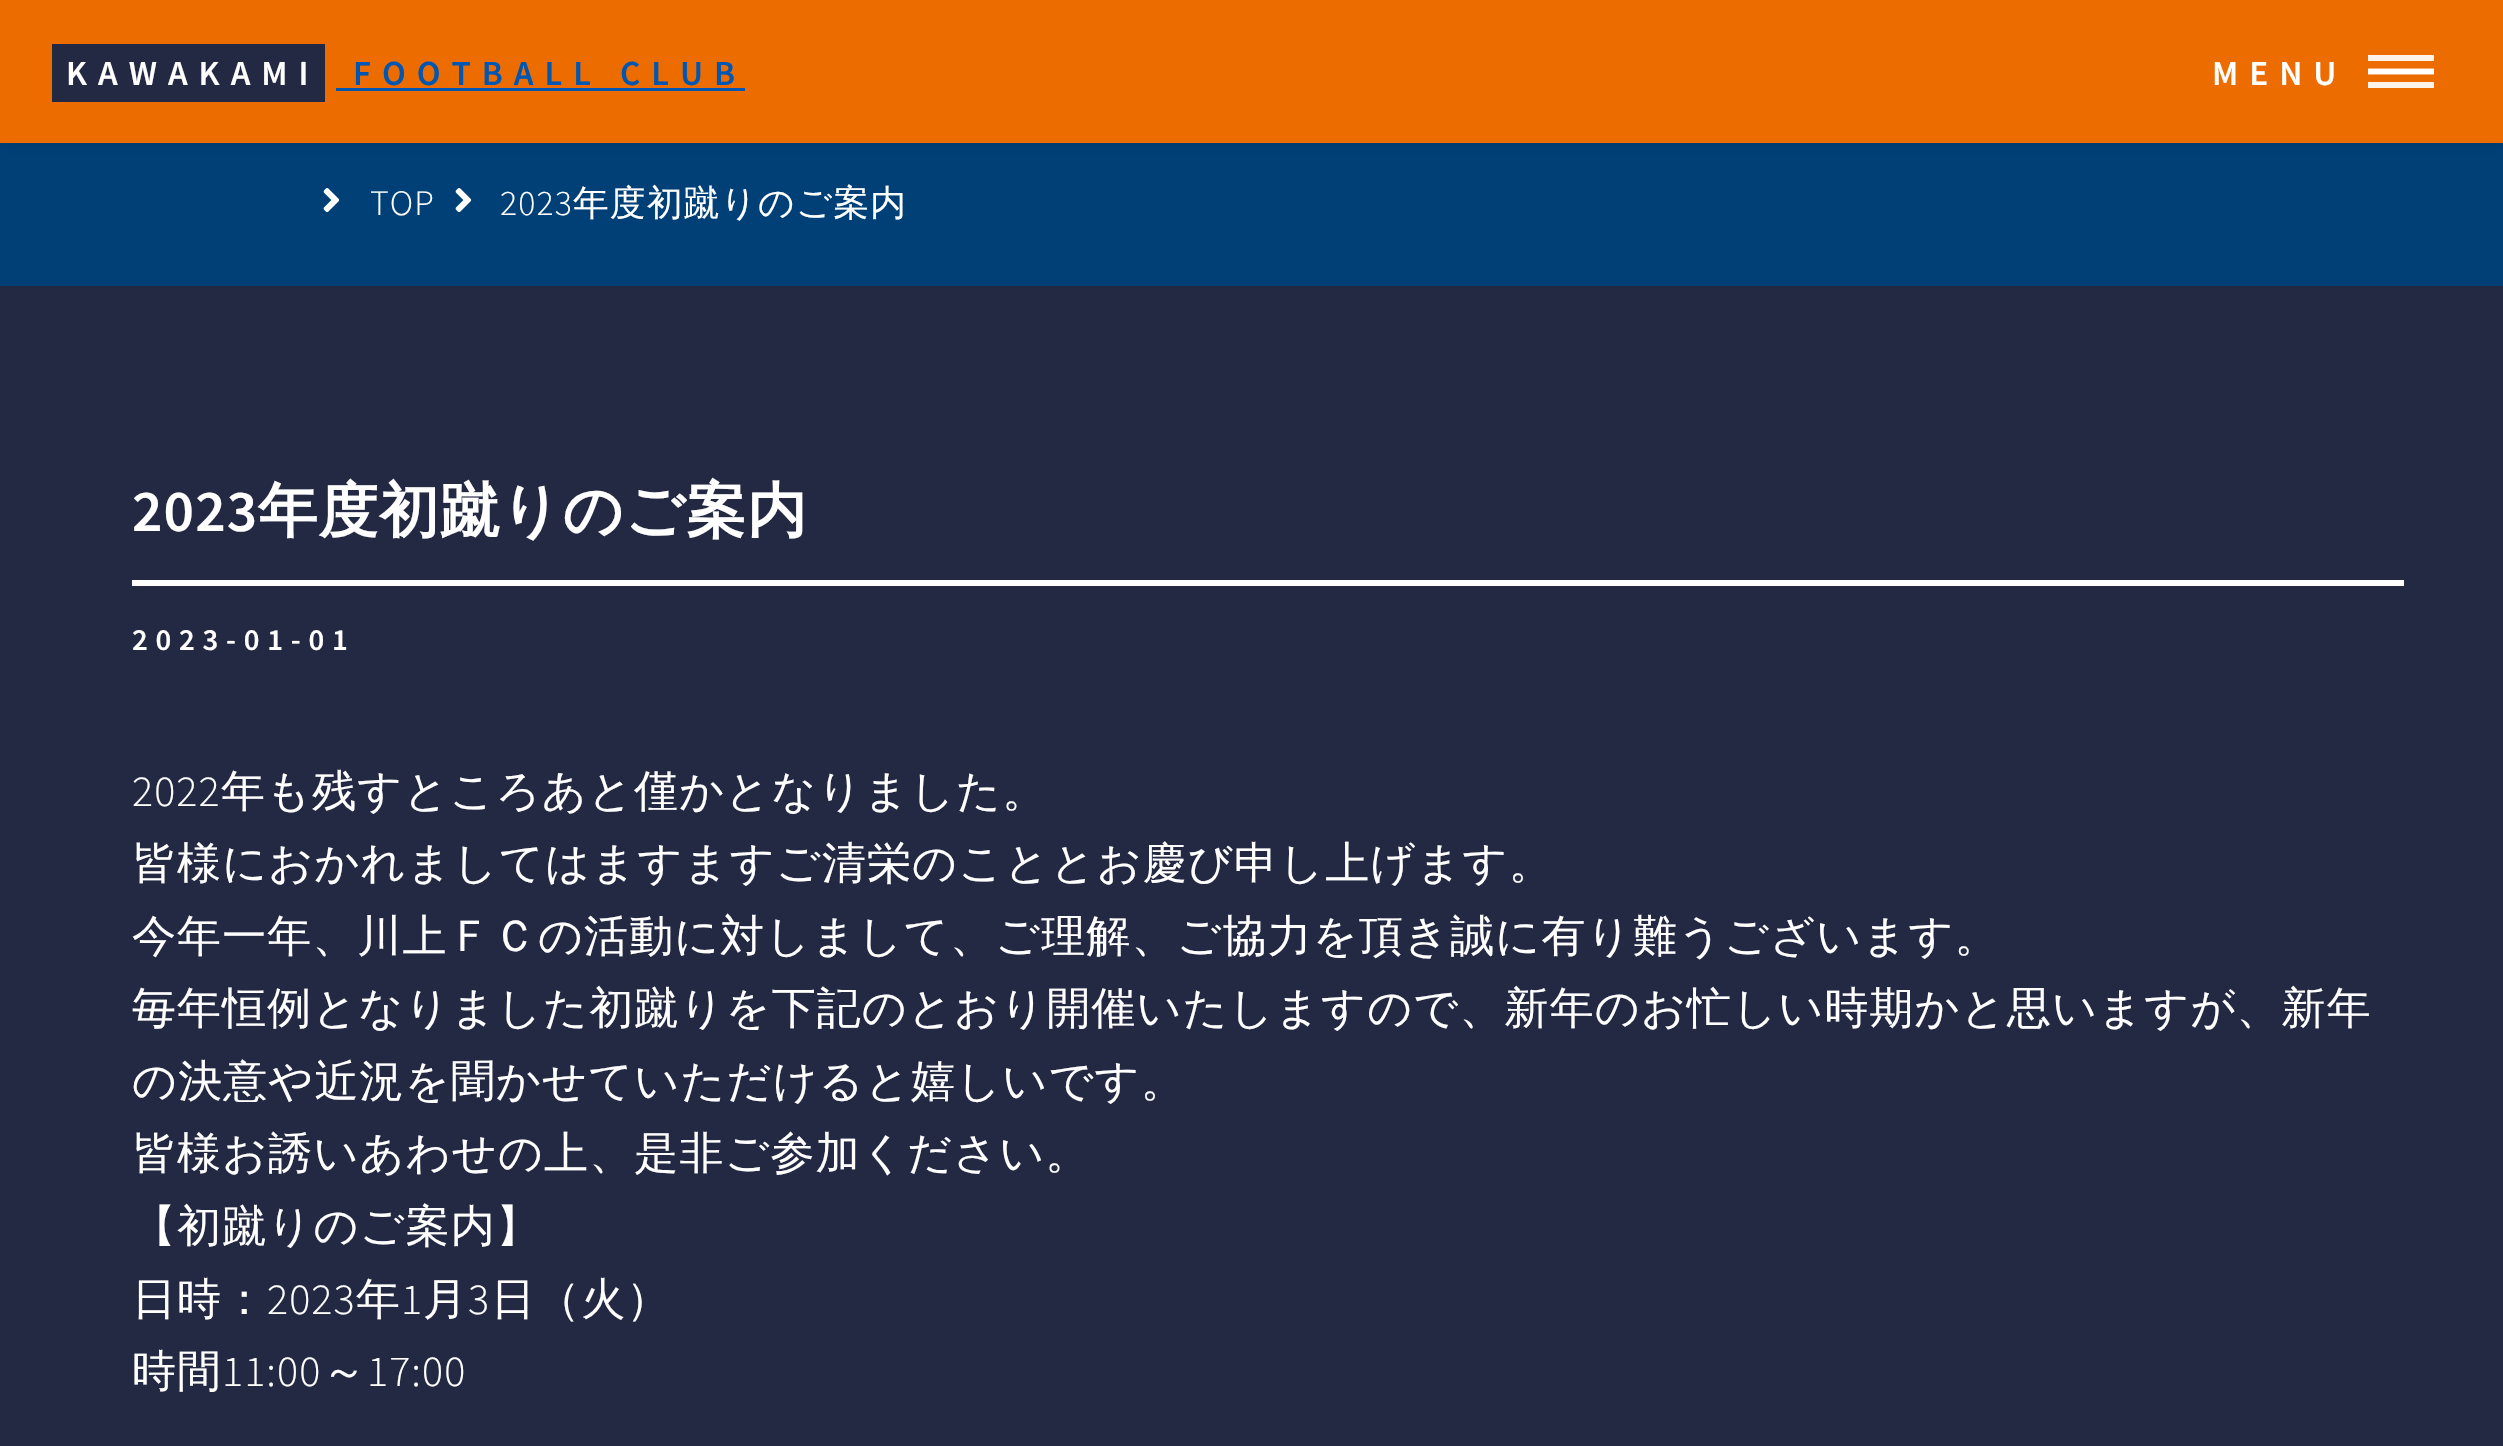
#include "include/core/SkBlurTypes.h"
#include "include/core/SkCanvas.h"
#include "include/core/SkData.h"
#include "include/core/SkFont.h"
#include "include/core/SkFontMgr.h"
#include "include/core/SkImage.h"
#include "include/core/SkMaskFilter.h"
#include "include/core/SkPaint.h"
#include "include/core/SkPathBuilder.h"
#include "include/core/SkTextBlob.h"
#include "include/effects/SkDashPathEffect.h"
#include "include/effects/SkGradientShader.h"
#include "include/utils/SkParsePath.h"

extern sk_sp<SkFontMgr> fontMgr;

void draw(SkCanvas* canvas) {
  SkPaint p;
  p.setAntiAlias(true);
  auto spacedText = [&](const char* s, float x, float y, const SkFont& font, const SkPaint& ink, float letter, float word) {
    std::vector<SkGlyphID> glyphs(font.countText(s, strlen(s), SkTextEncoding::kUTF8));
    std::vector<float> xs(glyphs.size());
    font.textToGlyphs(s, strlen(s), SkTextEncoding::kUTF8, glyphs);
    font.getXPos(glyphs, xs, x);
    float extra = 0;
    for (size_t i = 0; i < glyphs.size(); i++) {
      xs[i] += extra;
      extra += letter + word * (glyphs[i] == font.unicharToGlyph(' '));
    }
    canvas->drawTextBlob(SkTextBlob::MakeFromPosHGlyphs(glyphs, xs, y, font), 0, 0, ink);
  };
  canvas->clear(SkColorSetRGB(36, 41, 67));
  p.setColor(SkColorSetRGB(0, 64, 119));
  canvas->drawRect(SkRect::MakeLTRB(0, 143, 2503, 286), p);
  p.setColor(SkColorSetARGB(38, 0, 0, 0));
  p.setMaskFilter(SkMaskFilter::MakeBlur(kNormal_SkBlurStyle, 5.5f));
  canvas->drawRect(SkRect::MakeLTRB(0, 0, 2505, 143), p);
  p.setMaskFilter(nullptr);
  p.setColor(SkColorSetRGB(237, 108, 0));
  canvas->drawRect(SkRect::MakeLTRB(0, 0, 2503, 143), p);
  p.setColor(SkColorSetRGB(36, 41, 67));
  canvas->drawRect(SkRect::MakeLTRB(52, 44, 325, 102), p);
  p.setColor(SkColorSetRGB(0, 86, 179));
  canvas->drawRect(SkRect::MakeLTRB(336, 88, 745, 91), p);
  p.setColor(SkColorSetRGB(254, 243, 234));
  canvas->drawRect(SkRect::MakeLTRB(2368, 55, 2434, 61), p);
  canvas->drawRect(SkRect::MakeLTRB(2368, 82, 2434, 88), p);
  p.setStyle(SkPaint::kStroke_Style);
  p.setStrokeWidth(5.5f);
  p.setColor(SK_ColorWHITE);
  canvas->drawPath(SkPathBuilder().moveTo(2368, 71.5f).lineTo(2434, 71.5f).detach(), p);
  canvas->drawPath(SkPathBuilder().moveTo(2368, 71.5f).lineTo(2434, 71.5f).detach(), p);
  canvas->drawImageRect(SkImages::DeferredFromEncodedData(SkData::MakeFromFileName("images/1.png")), SkRect::MakeLTRB(323, 188, 340, 213), SkSamplingOptions());
  canvas->drawImageRect(SkImages::DeferredFromEncodedData(SkData::MakeFromFileName("images/1.png")), SkRect::MakeLTRB(455, 188, 472, 213), SkSamplingOptions());
  p.setStyle(SkPaint::kFill_Style);
  canvas->drawRect(SkRect::MakeLTRB(132, 580, 2404, 586), p);
  SkFont font1(fontMgr->matchFamilyStyle("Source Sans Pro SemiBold", SkFontStyle(600, SkFontStyle::kNormal_Width, SkFontStyle::kUpright_Slant)), 35.25f);
  font1.setSubpixel(true);
  spacedText("KAWAKAMI", 66, 85, font1, p, 11, 0);
  p.setColor(SkColorSetRGB(0, 86, 179));
  spacedText("FOOTBALL CLUB", 353, 85, font1, p, 11, 0);
  p.setColor(SK_ColorWHITE);
  spacedText("MENU", 2212, 85, font1, p, 11, 0);
  SkFont font2(fontMgr->matchFamilyStyle("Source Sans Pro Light", SkFontStyle(300, SkFontStyle::kNormal_Width, SkFontStyle::kUpright_Slant)), 35.75f);
  font2.setSubpixel(true);
  spacedText("TOP", 370, 215, font2, p, 1.1f, 0);
  spacedText("2023", 500, 215, font2, p, 1.1f, 0);
  SkFont font3(fontMgr->matchFamilyStyle("WenQuanYi Zen Hei", SkFontStyle(500, SkFontStyle::kNormal_Width, SkFontStyle::kUpright_Slant)), 35.75f);
  font3.setSubpixel(true);
  spacedText("年度初蹴りのご案内", 573, 215, font3, p, 1.1f, 0);
  SkFont font4(fontMgr->matchFamilyStyle("Source Sans Pro SemiBold", SkFontStyle(600, SkFontStyle::kNormal_Width, SkFontStyle::kUpright_Slant)), 59.5f);
  font4.setSubpixel(true);
  spacedText("2023", 132, 531, font4, p, 1.1f, 0);
  SkFont font5(fontMgr->matchFamilyStyle("WenQuanYi Zen Hei", SkFontStyle::Bold()), 59.5f);
  font5.setSubpixel(true);
  spacedText("年度初蹴りのご案内", 258, 531, font5, p, 1.1f, 0);
  SkFont font6(fontMgr->matchFamilyStyle("Source Sans Pro SemiBold", SkFontStyle(600, SkFontStyle::kNormal_Width, SkFontStyle::kUpright_Slant)), 30.75f);
  font6.setSubpixel(true);
  spacedText("2023-01-01", 132, 650, font6, p, 7.75f, 0);
  SkFont font7(fontMgr->matchFamilyStyle("Source Sans Pro Light", SkFontStyle(300, SkFontStyle::kNormal_Width, SkFontStyle::kUpright_Slant)), 44);
  font7.setSubpixel(true);
  spacedText("2022", 132, 806, font7, p, 1.1f, 0);
  SkFont font8(fontMgr->matchFamilyStyle("WenQuanYi Zen Hei", SkFontStyle(500, SkFontStyle::kNormal_Width, SkFontStyle::kUpright_Slant)), 44);
  font8.setSubpixel(true);
  spacedText("年も残すところあと僅かとなりました。", 221, 806, font8, p, 1.1f, 0);
  spacedText("皆様におかれましてはますますご清栄のこととお慶び申し上げます。", 132, 878, font8, p, 1.1f, 0);
  spacedText("今年一年、川上ＦＣの活動に対しまして、ご理解、ご協力を頂き誠に有り難うございます。", 132, 951, font8, p, 1.1f, 0);
  spacedText("毎年恒例となりました初蹴りを下記のとおり開催いたしますので、新年のお忙しい時期かと思いますが、新年", 132, 1023, font8, p, 1.1f, 0);
  spacedText("の決意や近況を聞かせていただけると嬉しいです。", 132, 1096, font8, p, 1.1f, 0);
  spacedText("皆様お誘いあわせの上、是非ご参加ください。", 132, 1168, font8, p, 1.1f, 0);
  spacedText("【初蹴りのご案内】", 132, 1241, font8, p, 1.1f, 0);
  spacedText("日時：", 132, 1314, font8, p, 1.1f, 0);
  spacedText("2023", 267, 1314, font7, p, 1.1f, 0);
  spacedText("年", 356, 1314, font8, p, 1.1f, 0);
  spacedText("1", 401, 1314, font7, p, 1.1f, 0);
  spacedText("月", 423, 1314, font8, p, 1.1f, 0);
  spacedText("3", 468, 1314, font7, p, 1.1f, 0);
  spacedText("日（火）", 491, 1314, font8, p, 1.1f, 0);
  spacedText("時間", 132, 1386, font8, p, 1.1f, 0);
  spacedText("11:00", 222, 1386, font7, p, 1.1f, 0);
  spacedText("～", 322, 1386, font8, p, 1.1f, 0);
  spacedText("17:00", 367, 1386, font7, p, 1.1f, 0);
}
